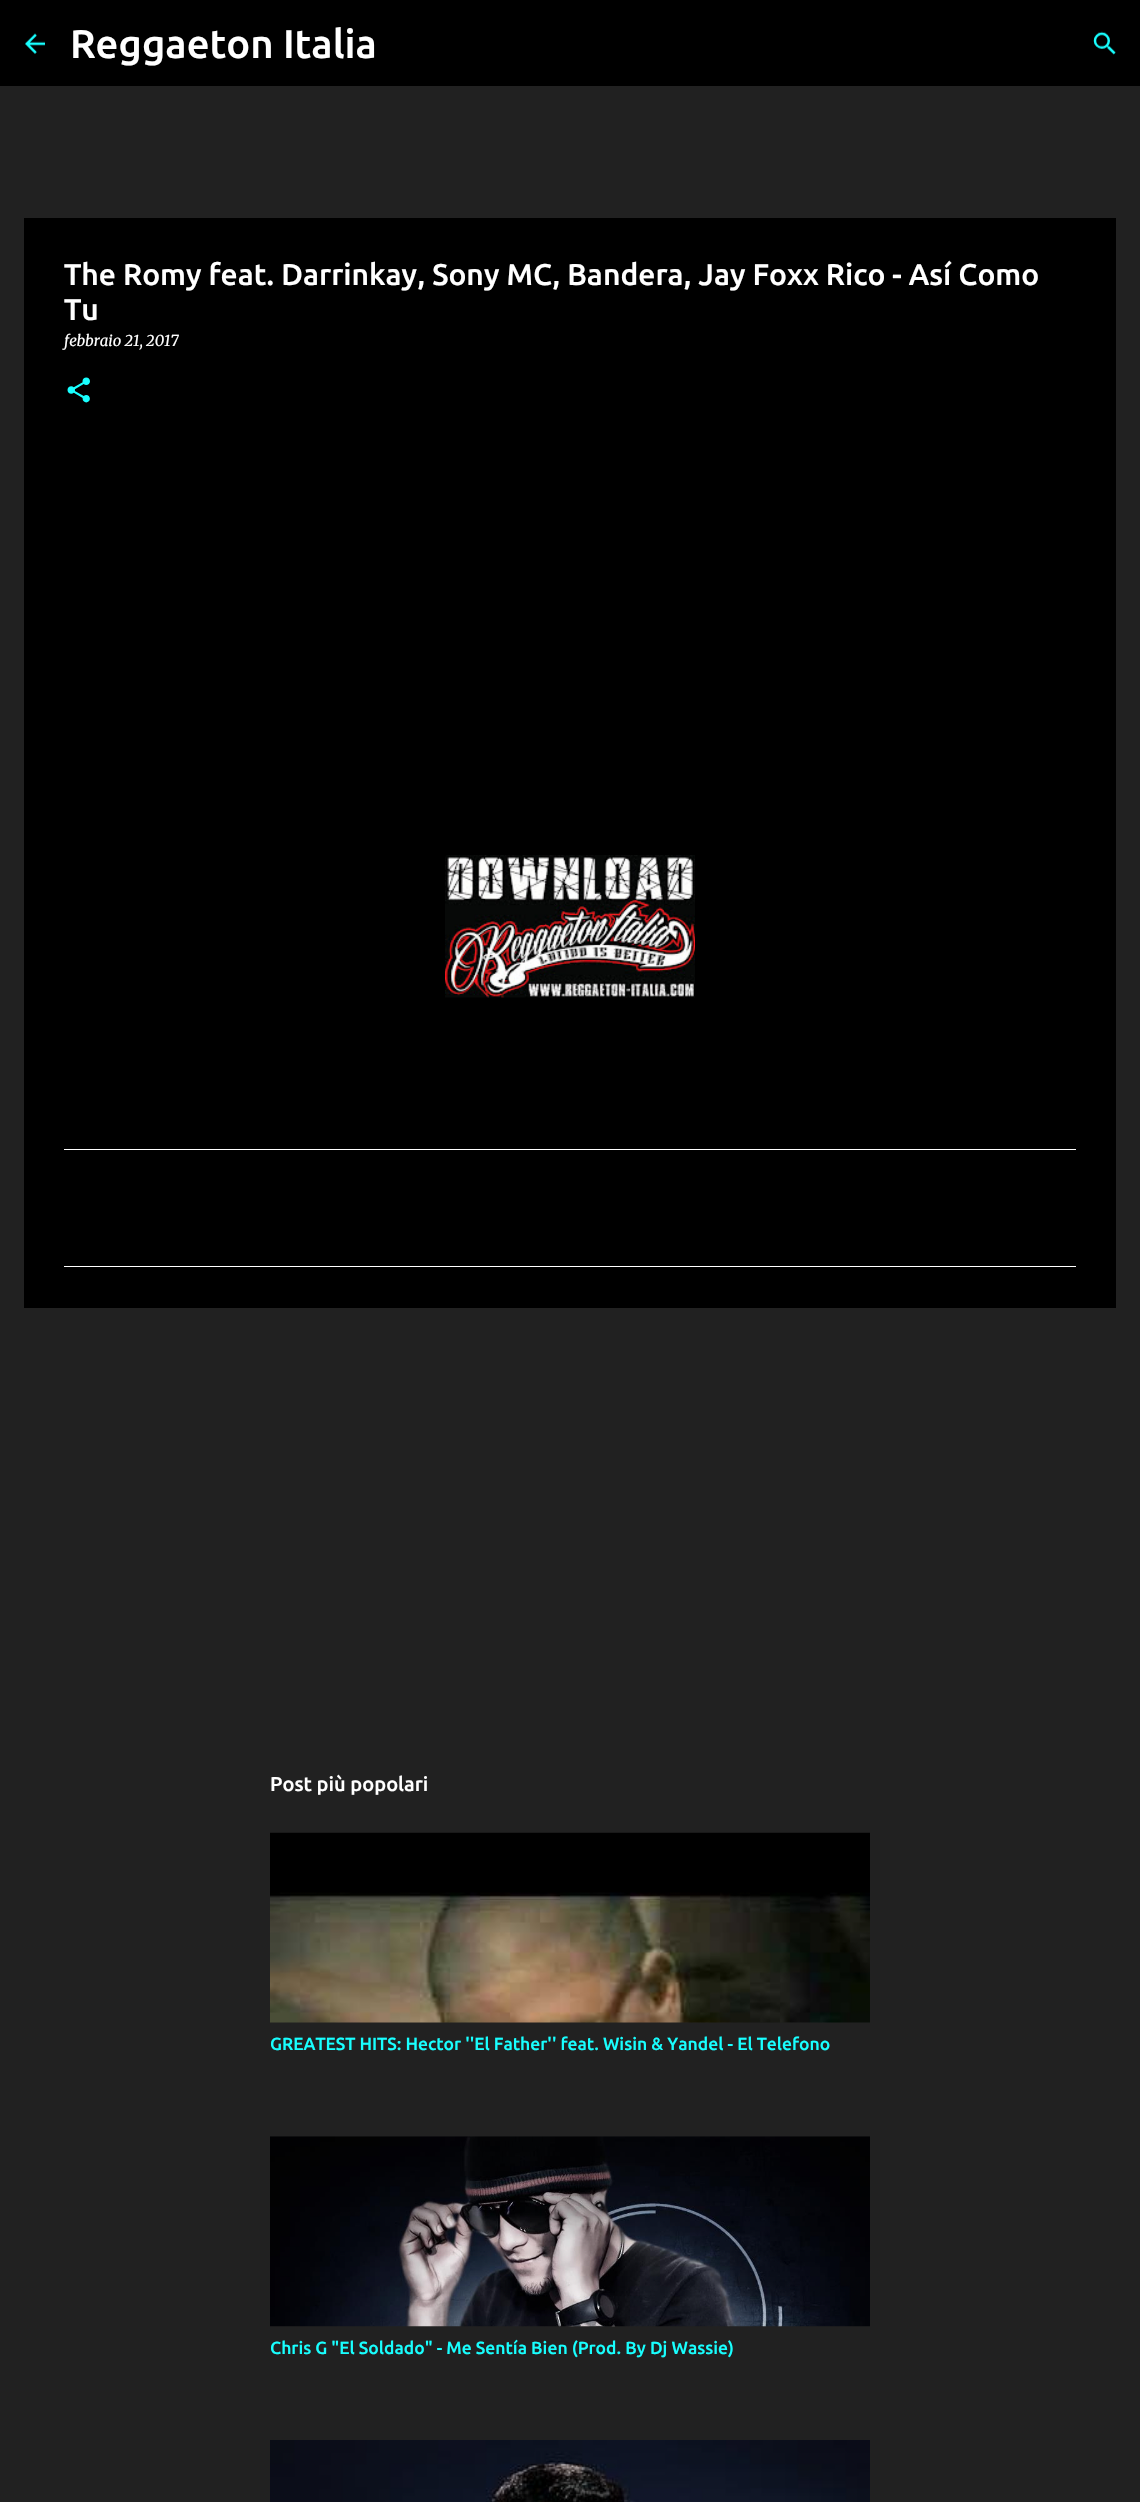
#include "include/core/SkBlurTypes.h"
#include "include/core/SkCanvas.h"
#include "include/core/SkData.h"
#include "include/core/SkFont.h"
#include "include/core/SkFontMgr.h"
#include "include/core/SkImage.h"
#include "include/core/SkMaskFilter.h"
#include "include/core/SkPaint.h"
#include "include/core/SkPathBuilder.h"
#include "include/core/SkTextBlob.h"
#include "include/effects/SkDashPathEffect.h"
#include "include/effects/SkGradientShader.h"
#include "include/utils/SkParsePath.h"

extern sk_sp<SkFontMgr> fontMgr;

void draw(SkCanvas* canvas) {
  SkPaint p;
  p.setAntiAlias(true);
  canvas->clear(SkColorSetRGB(33, 33, 33));
  p.setColor(SK_ColorBLACK);
  canvas->drawRect(SkRect::MakeLTRB(0, 0, 1140, 86), p);
  canvas->drawImageRect(SkImages::DeferredFromEncodedData(SkData::MakeFromFileName("images/1.png")), SkRect::MakeLTRB(25, 33, 45, 54), SkSamplingOptions());
  canvas->drawImageRect(SkImages::DeferredFromEncodedData(SkData::MakeFromFileName("images/2.png")), SkRect::MakeLTRB(1093, 31, 1116, 55), SkSamplingOptions());
  canvas->drawRect(SkRect::MakeLTRB(24, 218, 1116, 1308), p);
  p.setColor(SK_ColorWHITE);
  canvas->drawRect(SkRect::MakeLTRB(64, 1149, 1076, 1150), p);
  canvas->drawRect(SkRect::MakeLTRB(64, 1266, 1076, 1267), p);
  canvas->drawImageRect(SkImages::DeferredFromEncodedData(SkData::MakeFromFileName("images/3.png")), SkRect::MakeLTRB(67, 377, 90, 403), SkSamplingOptions());
  canvas->drawImageRect(SkImages::DeferredFromEncodedData(SkData::MakeFromFileName("images/4.png")), SkRect::MakeLTRB(445, 855, 695, 998), SkSamplingOptions());
  canvas->drawImageRect(SkImages::DeferredFromEncodedData(SkData::MakeFromFileName("images/5.png")), SkRect::MakeLTRB(270, 1832, 870, 2023), SkSamplingOptions());
  canvas->drawImageRect(SkImages::DeferredFromEncodedData(SkData::MakeFromFileName("images/6.png")), SkRect::MakeLTRB(270, 2136, 870, 2327), SkSamplingOptions());
  canvas->drawImageRect(SkImages::DeferredFromEncodedData(SkData::MakeFromFileName("images/7.png")), SkRect::MakeLTRB(270, 2440, 870, 2502), SkSamplingOptions());
  SkFont font1(fontMgr->matchFamilyStyle("Ubuntu", SkFontStyle(500, SkFontStyle::kNormal_Width, SkFontStyle::kUpright_Slant)), 40);
  font1.setSubpixel(true);
  canvas->drawString("Reggaeton Italia", 70, 58, font1, p);
  SkFont font2(fontMgr->matchFamilyStyle("Ubuntu", SkFontStyle(500, SkFontStyle::kNormal_Width, SkFontStyle::kUpright_Slant)), 30);
  font2.setSubpixel(true);
  canvas->drawString("The Romy feat. Darrinkay, Sony MC, Bandera, Jay Foxx Rico - Así Como", 64, 285, font2, p);
  canvas->drawString("Tu", 64, 320, font2, p);
  SkFont font3(fontMgr->matchFamilyStyle("Merriweather", SkFontStyle::Italic()), 15);
  font3.setSubpixel(true);
  canvas->drawString("febbraio 21, 2017", 64, 346, font3, p);
  SkFont font4(fontMgr->matchFamilyStyle("Ubuntu", SkFontStyle(500, SkFontStyle::kNormal_Width, SkFontStyle::kUpright_Slant)), 20);
  font4.setSubpixel(true);
  canvas->drawString("Post più popolari", 270, 1791, font4, p);
  SkFont font5(fontMgr->matchFamilyStyle("Ubuntu", SkFontStyle(500, SkFontStyle::kNormal_Width, SkFontStyle::kUpright_Slant)), 17.5f);
  font5.setSubpixel(true);
  p.setColor(SkColorSetRGB(24, 255, 255));
  canvas->drawString("GREATEST HITS: Hector ''El Father'' feat. Wisin & Yandel - El Telefono", 270, 2050, font5, p);
  canvas->drawString("Chris G \"El Soldado\" - Me Sentía Bien (Prod. By Dj Wassie)", 270, 2354, font5, p);
}
